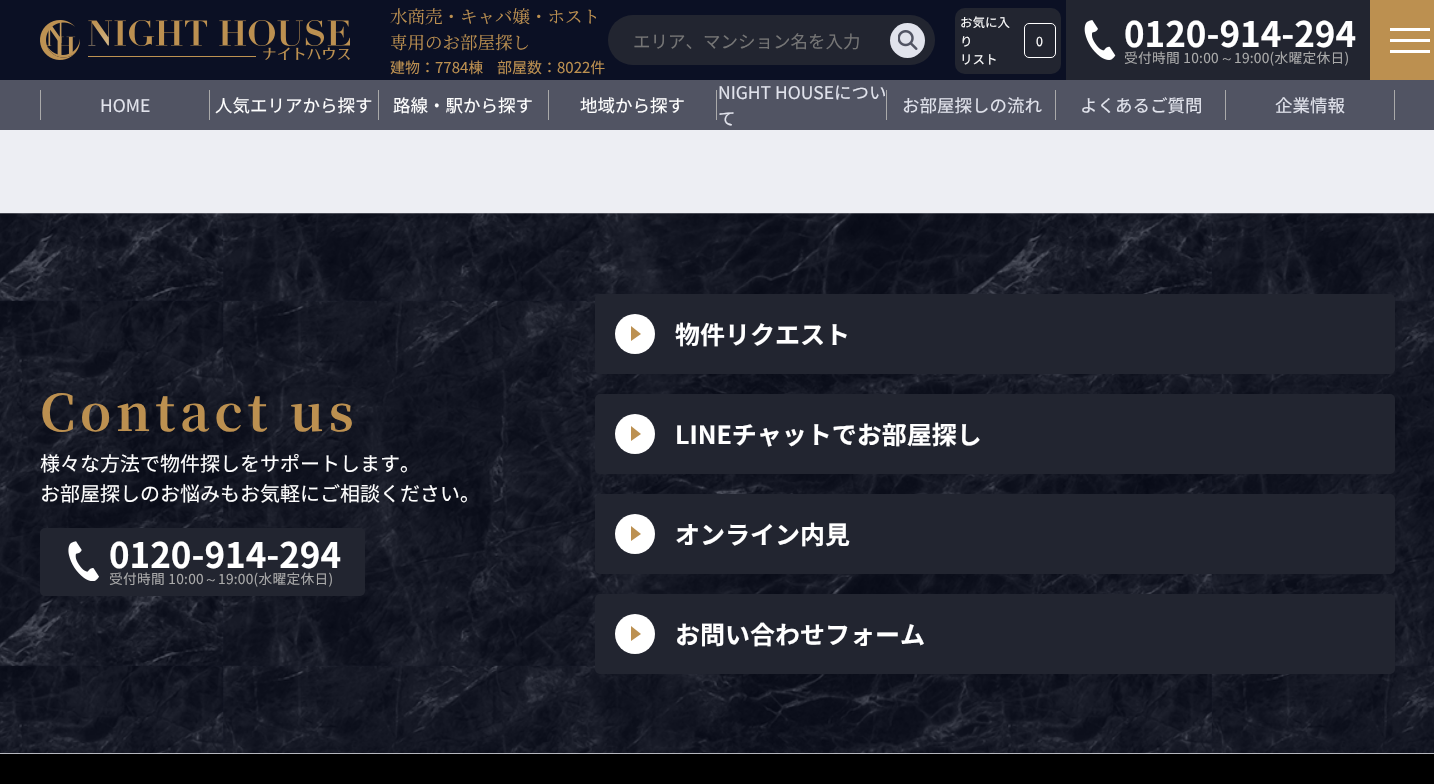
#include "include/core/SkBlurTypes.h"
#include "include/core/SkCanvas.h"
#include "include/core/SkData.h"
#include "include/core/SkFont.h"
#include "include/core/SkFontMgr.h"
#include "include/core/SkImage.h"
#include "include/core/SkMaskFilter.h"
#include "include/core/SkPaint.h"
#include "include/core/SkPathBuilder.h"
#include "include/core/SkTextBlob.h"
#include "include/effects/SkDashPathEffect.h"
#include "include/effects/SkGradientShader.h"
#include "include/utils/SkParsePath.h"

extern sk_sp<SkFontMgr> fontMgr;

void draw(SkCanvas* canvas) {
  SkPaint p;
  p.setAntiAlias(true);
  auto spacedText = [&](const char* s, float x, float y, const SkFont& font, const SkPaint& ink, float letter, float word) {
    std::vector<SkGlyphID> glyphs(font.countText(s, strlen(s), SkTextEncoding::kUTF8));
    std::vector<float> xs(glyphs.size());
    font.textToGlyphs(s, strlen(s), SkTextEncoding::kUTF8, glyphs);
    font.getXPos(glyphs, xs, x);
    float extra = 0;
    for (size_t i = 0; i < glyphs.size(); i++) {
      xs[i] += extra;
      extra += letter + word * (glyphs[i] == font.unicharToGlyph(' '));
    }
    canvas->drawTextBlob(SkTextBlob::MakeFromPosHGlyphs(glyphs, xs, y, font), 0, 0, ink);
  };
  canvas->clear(SkColorSetRGB(237, 238, 243));
  p.setColor(SkColorSetRGB(11, 16, 36));
  canvas->drawRect(SkRect::MakeLTRB(0, 0, 1066, 80), p);
  canvas->drawImageRect(SkImages::DeferredFromEncodedData(SkData::MakeFromFileName("images/1.png")), SkRect::MakeLTRB(40, 20, 350, 60), SkSamplingOptions());
  p.setColor(SkColorSetRGB(34, 37, 48));
  canvas->drawRoundRect(SkRect::MakeLTRB(608, 15, 935, 65), 25, 25, p);
  p.setColor(SkColorSetRGB(225, 227, 236));
  canvas->drawCircle(907.5f, 40.5f, 17.5f, p);
  canvas->drawImageRect(SkImages::DeferredFromEncodedData(SkData::MakeFromFileName("images/2.png")), SkRect::MakeLTRB(898, 30, 918, 50), SkSamplingOptions());
  p.setColor(SkColorSetRGB(34, 37, 48));
  canvas->drawRoundRect(SkRect::MakeLTRB(955, 8, 1061, 74), 10, 10, p);
  p.setStyle(SkPaint::kStroke_Style);
  p.setStrokeWidth(1);
  p.setColor(SK_ColorWHITE);
  canvas->drawRoundRect(SkRect::MakeLTRB(1024.5f, 23.5f, 1055.5f, 57.5f), 4.5f, 4.5f, p);
  p.setStyle(SkPaint::kFill_Style);
  p.setColor(SkColorSetRGB(34, 37, 48));
  canvas->drawRect(SkRect::MakeLTRB(1066, 0, 1370, 80), p);
  canvas->drawImageRect(SkImages::DeferredFromEncodedData(SkData::MakeFromFileName("images/3.png")), SkRect::MakeLTRB(1084, 20, 1116, 60), SkSamplingOptions());
  p.setColor(SkColorSetRGB(188, 144, 80));
  canvas->drawRect(SkRect::MakeLTRB(1370, 0, 1434, 80), p);
  p.setColor(SK_ColorWHITE);
  canvas->drawRect(SkRect::MakeLTRB(1390, 28, 1430, 31), p);
  canvas->drawRect(SkRect::MakeLTRB(1390, 39, 1430, 42), p);
  canvas->drawRect(SkRect::MakeLTRB(1390, 50, 1430, 53), p);
  p.setColor(SkColorSetRGB(81, 84, 99));
  canvas->drawRect(SkRect::MakeLTRB(0, 80, 1434, 130), p);
  p.setColor(SkColorSetRGB(170, 170, 170));
  canvas->drawRect(SkRect::MakeLTRB(40, 90, 41, 120), p);
  canvas->drawRect(SkRect::MakeLTRB(209, 90, 210, 120), p);
  canvas->drawRect(SkRect::MakeLTRB(378, 90, 379, 120), p);
  canvas->drawRect(SkRect::MakeLTRB(548, 90, 549, 120), p);
  canvas->drawRect(SkRect::MakeLTRB(716, 90, 717, 120), p);
  canvas->drawRect(SkRect::MakeLTRB(886, 90, 887, 120), p);
  canvas->drawRect(SkRect::MakeLTRB(1055, 90, 1056, 120), p);
  canvas->drawRect(SkRect::MakeLTRB(1225, 90, 1226, 120), p);
  canvas->drawRect(SkRect::MakeLTRB(1394, 90, 1395, 120), p);
  canvas->drawImageRect(SkImages::DeferredFromEncodedData(SkData::MakeFromFileName("images/4.png")), SkRect::MakeLTRB(0, 213, 1434, 754), SkSamplingOptions());
  p.setColor(SkColorSetRGB(34, 37, 48));
  canvas->drawRoundRect(SkRect::MakeLTRB(40, 528, 365, 596), 5, 5, p);
  canvas->drawImageRect(SkImages::DeferredFromEncodedData(SkData::MakeFromFileName("images/5.png")), SkRect::MakeLTRB(68, 541, 99, 581), SkSamplingOptions());
  canvas->drawRoundRect(SkRect::MakeLTRB(595, 294, 1395, 374), 5, 5, p);
  p.setColor(SK_ColorWHITE);
  canvas->drawCircle(635, 334, 20, p);
  p.setColor(SkColorSetRGB(188, 144, 80));
  canvas->drawPath(SkPathBuilder().moveTo(631, 341).lineTo(631, 326).lineTo(641, 334).close().detach(), p);
  p.setColor(SkColorSetRGB(34, 37, 48));
  canvas->drawRoundRect(SkRect::MakeLTRB(595, 394, 1395, 474), 5, 5, p);
  p.setColor(SK_ColorWHITE);
  canvas->drawCircle(635, 434, 20, p);
  p.setColor(SkColorSetRGB(188, 144, 80));
  canvas->drawPath(SkPathBuilder().moveTo(631, 441).lineTo(631, 426).lineTo(641, 434).close().detach(), p);
  p.setColor(SkColorSetRGB(34, 37, 48));
  canvas->drawRoundRect(SkRect::MakeLTRB(595, 494, 1395, 574), 5, 5, p);
  p.setColor(SK_ColorWHITE);
  canvas->drawCircle(635, 534, 20, p);
  p.setColor(SkColorSetRGB(188, 144, 80));
  canvas->drawPath(SkPathBuilder().moveTo(631, 541).lineTo(631, 526).lineTo(641, 534).close().detach(), p);
  p.setColor(SkColorSetRGB(34, 37, 48));
  canvas->drawRoundRect(SkRect::MakeLTRB(595, 594, 1395, 674), 5, 5, p);
  p.setColor(SK_ColorWHITE);
  canvas->drawCircle(635, 634, 20, p);
  p.setColor(SkColorSetRGB(188, 144, 80));
  canvas->drawPath(SkPathBuilder().moveTo(631, 641).lineTo(631, 626).lineTo(641, 634).close().detach(), p);
  p.setColor(SK_ColorBLACK);
  canvas->drawRect(SkRect::MakeLTRB(0, 754, 1434, 784), p);
  SkFont font1(fontMgr->matchFamilyStyle("Noto Serif JP", SkFontStyle::Normal()), 17.5f);
  font1.setSubpixel(true);
  p.setColor(SkColorSetRGB(188, 144, 80));
  canvas->drawString("水商売・キャバ嬢・ホスト", 390, 23, font1, p);
  canvas->drawString("専用のお部屋探し", 390, 49, font1, p);
  SkFont font2(fontMgr->matchFamilyStyle("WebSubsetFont", SkFontStyle::Normal()), 15);
  font2.setSubpixel(true);
  canvas->drawString("建物：7784棟", 390, 73, font2, p);
  canvas->drawString("部屋数：8022件", 497, 73, font2, p);
  SkFont font3(fontMgr->matchFamilyStyle("WebSubsetFont", SkFontStyle::Normal()), 17.5f);
  font3.setSubpixel(true);
  p.setColor(SkColorSetRGB(117, 117, 117));
  canvas->drawString("エリア、マンション名を入力", 633, 48, font3, p);
  SkFont font4(fontMgr->matchFamilyStyle("WebSubsetFont", SkFontStyle::Normal()), 12.5f);
  font4.setSubpixel(true);
  p.setColor(SK_ColorWHITE);
  canvas->drawString("お気に入", 960, 27, font4, p);
  canvas->drawString("り", 960, 46, font4, p);
  canvas->drawString("リスト", 960, 64, font4, p);
  canvas->drawString("0", 1036, 46, font4, p);
  SkFont font5(fontMgr->matchFamilyStyle("WebSubsetFont", SkFontStyle::Bold()), 35);
  font5.setSubpixel(true);
  canvas->drawString("0120-914-294", 1124, 47, font5, p);
  SkFont font6(fontMgr->matchFamilyStyle("WebSubsetFont", SkFontStyle::Normal()), 13.75f);
  font6.setSubpixel(true);
  p.setColor(SkColorSetRGB(170, 170, 170));
  spacedText("受付時間 10:00", 1124, 63, font6, p, 0.25f, 0);
  SkFont font7(fontMgr->matchFamilyStyle("WenQuanYi Zen Hei", SkFontStyle(500, SkFontStyle::kNormal_Width, SkFontStyle::kUpright_Slant)), 13.75f);
  font7.setSubpixel(true);
  spacedText("～", 1220, 63, font7, p, 0.25f, 0);
  spacedText("19:00(水曜定休日)", 1234, 63, font6, p, 0.25f, 0);
  p.setColor(SkColorSetRGB(225, 227, 236));
  canvas->drawString("HOME", 100, 112, font3, p);
  p.setColor(SK_ColorWHITE);
  canvas->drawString("人気エリアから探す", 215, 112, font3, p);
  canvas->drawString("路線・駅から探す", 393, 112, font3, p);
  canvas->drawString("地域から探す", 580, 112, font3, p);
  p.setColor(SkColorSetRGB(225, 227, 236));
  canvas->drawString("NIGHT HOUSEについ", 718, 99, font3, p);
  canvas->drawString("て", 718, 125, font3, p);
  canvas->drawString("お部屋探しの流れ", 902, 112, font3, p);
  canvas->drawString("よくあるご質問", 1080, 112, font3, p);
  canvas->drawString("企業情報", 1275, 112, font3, p);
  SkFont font8(fontMgr->matchFamilyStyle("Noto Serif JP", SkFontStyle::Bold()), 50);
  font8.setSubpixel(true);
  p.setColor(SkColorSetRGB(188, 144, 80));
  spacedText("Contact us", 40, 431, font8, p, 5, 0);
  SkFont font9(fontMgr->matchFamilyStyle("WebSubsetFont", SkFontStyle::Normal()), 20);
  font9.setSubpixel(true);
  p.setColor(SK_ColorWHITE);
  canvas->drawString("様々な方法で物件探しをサポートします。", 40, 471, font9, p);
  canvas->drawString("お部屋探しのお悩みもお気軽にご相談ください。", 40, 501, font9, p);
  canvas->drawString("0120-914-294", 109, 568, font5, p);
  p.setColor(SkColorSetRGB(170, 170, 170));
  spacedText("受付時間 10:00", 109, 584, font6, p, 0.25f, 0);
  spacedText("～", 204, 584, font7, p, 0.25f, 0);
  spacedText("19:00(水曜定休日)", 218, 584, font6, p, 0.25f, 0);
  SkFont font10(fontMgr->matchFamilyStyle("WebSubsetFont", SkFontStyle::Bold()), 25);
  font10.setSubpixel(true);
  p.setColor(SK_ColorWHITE);
  canvas->drawString("物件リクエスト", 675, 344, font10, p);
  canvas->drawString("LINEチャットでお部屋探し", 675, 444, font10, p);
  canvas->drawString("オンライン内見", 675, 544, font10, p);
  canvas->drawString("お問い合わせフォーム", 675, 644, font10, p);
}
